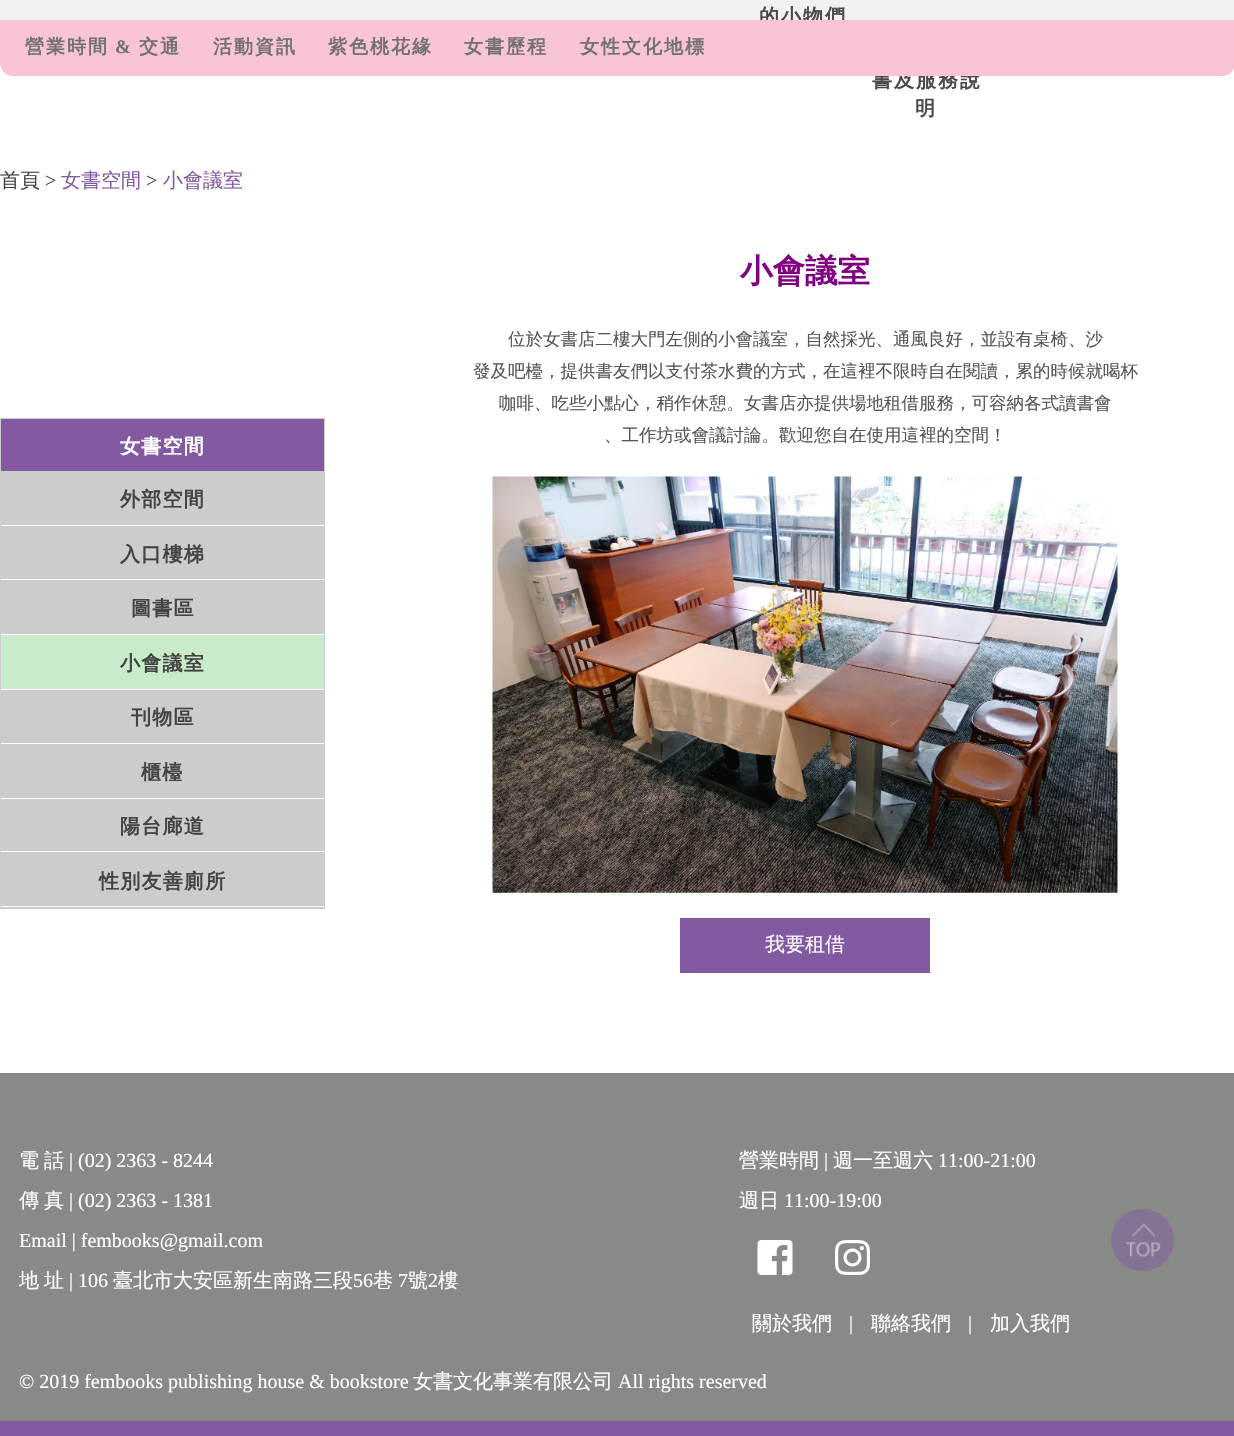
#include "include/core/SkBlurTypes.h"
#include "include/core/SkCanvas.h"
#include "include/core/SkData.h"
#include "include/core/SkFont.h"
#include "include/core/SkFontMgr.h"
#include "include/core/SkImage.h"
#include "include/core/SkMaskFilter.h"
#include "include/core/SkPaint.h"
#include "include/core/SkPathBuilder.h"
#include "include/core/SkTextBlob.h"
#include "include/effects/SkDashPathEffect.h"
#include "include/effects/SkGradientShader.h"
#include "include/utils/SkParsePath.h"

extern sk_sp<SkFontMgr> fontMgr;

void draw(SkCanvas* canvas) {
  SkPaint p;
  p.setAntiAlias(true);
  auto spacedText = [&](const char* s, float x, float y, const SkFont& font, const SkPaint& ink, float letter, float word) {
    std::vector<SkGlyphID> glyphs(font.countText(s, strlen(s), SkTextEncoding::kUTF8));
    std::vector<float> xs(glyphs.size());
    font.textToGlyphs(s, strlen(s), SkTextEncoding::kUTF8, glyphs);
    font.getXPos(glyphs, xs, x);
    float extra = 0;
    for (size_t i = 0; i < glyphs.size(); i++) {
      xs[i] += extra;
      extra += letter + word * (glyphs[i] == font.unicharToGlyph(' '));
    }
    canvas->drawTextBlob(SkTextBlob::MakeFromPosHGlyphs(glyphs, xs, y, font), 0, 0, ink);
  };
  canvas->clear(SK_ColorWHITE);
  p.setColor(SkColorSetRGB(241, 241, 241));
  canvas->drawRect(SkRect::MakeLTRB(0, 0, 1234, 20), p);
  p.setStyle(SkPaint::kStroke_Style);
  p.setStrokeWidth(1);
  p.setColor(SkColorSetRGB(204, 204, 204));
  canvas->drawRect(SkRect::MakeLTRB(0.5f, 418.5f, 324.5f, 908.5f), p);
  p.setStyle(SkPaint::kFill_Style);
  p.setColor(SkColorSetRGB(131, 89, 162));
  canvas->drawRect(SkRect::MakeLTRB(1, 419, 324, 471), p);
  p.setColor(SkColorSetRGB(204, 204, 204));
  canvas->drawRect(SkRect::MakeLTRB(1, 471, 324, 525), p);
  canvas->drawRect(SkRect::MakeLTRB(1, 526, 324, 579), p);
  canvas->drawRect(SkRect::MakeLTRB(1, 580, 324, 634), p);
  p.setColor(SkColorSetRGB(200, 235, 201));
  canvas->drawRect(SkRect::MakeLTRB(1, 635, 324, 689), p);
  p.setColor(SkColorSetRGB(204, 204, 204));
  canvas->drawRect(SkRect::MakeLTRB(1, 690, 324, 743), p);
  canvas->drawRect(SkRect::MakeLTRB(1, 744, 324, 798), p);
  canvas->drawRect(SkRect::MakeLTRB(1, 799, 324, 908), p);
  p.setColor(SK_ColorWHITE);
  canvas->drawRect(SkRect::MakeLTRB(1, 851, 324, 852), p);
  canvas->drawRect(SkRect::MakeLTRB(1, 906, 324, 907), p);
  canvas->drawImageRect(SkImages::DeferredFromEncodedData(SkData::MakeFromFileName("images/1.png")), SkRect::MakeLTRB(492, 476, 1118, 893), SkSamplingOptions());
  p.setColor(SkColorSetRGB(131, 89, 162));
  canvas->drawRect(SkRect::MakeLTRB(680, 918, 930, 973), p);
  p.setColor(SkColorSetRGB(136, 138, 136));
  canvas->drawRect(SkRect::MakeLTRB(0, 1073, 1234, 1421), p);
  canvas->drawImageRect(SkImages::DeferredFromEncodedData(SkData::MakeFromFileName("images/2.png")), SkRect::MakeLTRB(757, 1240, 793, 1275), SkSamplingOptions());
  canvas->drawImageRect(SkImages::DeferredFromEncodedData(SkData::MakeFromFileName("images/3.png")), SkRect::MakeLTRB(835, 1240, 870, 1275), SkSamplingOptions());
  p.setColor(SkColorSetRGB(134, 114, 149));
  canvas->drawRoundRect(SkRect::MakeLTRB(1111, 1209, 1174, 1271), 31, 31, p);
  canvas->drawImageRect(SkImages::DeferredFromEncodedData(SkData::MakeFromFileName("images/4.png")), SkRect::MakeLTRB(1125, 1223, 1161, 1257), SkSamplingOptions());
  p.setColor(SkColorSetRGB(131, 89, 162));
  canvas->drawRect(SkRect::MakeLTRB(0, 1421, 1234, 1436), p);
  SkFont font1(fontMgr->matchFamilyStyle("WenQuanYi Zen Hei", SkFontStyle::Bold()), 20);
  font1.setSubpixel(true);
  p.setColor(SkColorSetRGB(76, 73, 72));
  spacedText("的小物們", 759, 23, font1, p, 2, 0);
  spacedText("書及服務說", 872, 87, font1, p, 2, 0);
  p.setColor(SkColorSetRGB(249, 196, 212));
  canvas->drawPath(SkPathBuilder().moveTo(0, 20).lineTo(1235, 20).lineTo(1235, 63).cubicTo(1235, 70, 1229, 76, 1222, 76).lineTo(13, 76).cubicTo(6, 76, 0, 70, 0, 63).close().detach(), p);
  SkFont font2(fontMgr->matchFamilyStyle("WenQuanYi Zen Hei", SkFontStyle::Bold()), 19);
  font2.setSubpixel(true);
  p.setColor(SkColorSetRGB(114, 113, 113));
  spacedText("女性文化地標", 580, 53, font2, p, 2, 0);
  spacedText("女書歷程", 464, 53, font2, p, 2, 0);
  spacedText("紫色桃花緣", 328, 53, font2, p, 2, 0);
  spacedText("活動資訊", 213, 53, font2, p, 2, 0);
  spacedText("交通", 139, 53, font2, p, 2, 0);
  SkFont font3(fontMgr->matchFamilyStyle("Liberation Serif", SkFontStyle::Bold()), 19);
  font3.setSubpixel(true);
  spacedText("&", 115, 53, font3, p, 2, 0);
  spacedText("營業時間", 25, 53, font2, p, 2, 0);
  p.setColor(SkColorSetRGB(76, 73, 72));
  spacedText("明", 915, 115, font1, p, 2, 0);
  SkFont font4(fontMgr->matchFamilyStyle("WenQuanYi Zen Hei", SkFontStyle(500, SkFontStyle::kNormal_Width, SkFontStyle::kUpright_Slant)), 20);
  font4.setSubpixel(true);
  p.setColor(SkColorSetRGB(67, 67, 67));
  canvas->drawString("首頁", 0, 187, font4, p);
  SkFont font5(fontMgr->matchFamilyStyle("Liberation Serif", SkFontStyle::Normal()), 20);
  font5.setSubpixel(true);
  canvas->drawString(">", 45, 187, font5, p);
  p.setColor(SkColorSetRGB(131, 89, 162));
  canvas->drawString("女書空間", 61, 187, font4, p);
  p.setColor(SkColorSetRGB(67, 67, 67));
  canvas->drawString(">", 146, 187, font5, p);
  p.setColor(SkColorSetRGB(131, 89, 162));
  canvas->drawString("小會議室", 163, 187, font4, p);
  p.setColor(SK_ColorWHITE);
  spacedText("女書空間", 120, 453, font1, p, 1.25f, 0);
  p.setColor(SkColorSetRGB(67, 67, 67));
  spacedText("外部空間", 120, 506, font1, p, 1.25f, 0);
  spacedText("入口樓梯", 120, 561, font1, p, 1.25f, 0);
  spacedText("圖書區", 131, 615, font1, p, 1.25f, 0);
  spacedText("小會議室", 120, 670, font1, p, 1.25f, 0);
  spacedText("刊物區", 131, 724, font1, p, 1.25f, 0);
  spacedText("櫃檯", 141, 779, font1, p, 1.25f, 0);
  spacedText("陽台廊道", 120, 833, font1, p, 1.25f, 0);
  spacedText("性別友善廁所", 99, 888, font1, p, 1.25f, 0);
  SkFont font6(fontMgr->matchFamilyStyle("WenQuanYi Zen Hei", SkFontStyle::Bold()), 32.5f);
  font6.setSubpixel(true);
  p.setColor(SkColorSetRGB(128, 0, 128));
  canvas->drawString("小會議室", 740, 282, font6, p);
  SkFont font7(fontMgr->matchFamilyStyle("WenQuanYi Zen Hei", SkFontStyle(500, SkFontStyle::kNormal_Width, SkFontStyle::kUpright_Slant)), 17.5f);
  font7.setSubpixel(true);
  p.setColor(SkColorSetRGB(85, 85, 85));
  canvas->drawString("位於女書店二樓大門左側的小會議室，自然採光、通風良好，並設有桌椅、沙", 508, 345, font7, p);
  canvas->drawString("發及吧檯，提供書友們以支付茶水費的方式，在這裡不限時自在閱讀，累的時候就喝杯", 473, 377, font7, p);
  canvas->drawString("咖啡、吃些小點心，稍作休憩。女書店亦提供場地租借服務，可容納各式讀書會", 499, 409, font7, p);
  canvas->drawString("、工作坊或會議討論。歡迎您自在使用這裡的空間！", 604, 441, font7, p);
  p.setColor(SK_ColorWHITE);
  canvas->drawString("我要租借", 765, 951, font4, p);
  canvas->drawString("電", 19, 1167, font4, p);
  canvas->drawString("話", 44, 1167, font4, p);
  canvas->drawString("| (02) 2363 - 8244", 69, 1167, font5, p);
  canvas->drawString("傳", 19, 1207, font4, p);
  canvas->drawString("真", 44, 1207, font4, p);
  canvas->drawString("| (02) 2363 - 1381", 69, 1207, font5, p);
  canvas->drawString("Email | fembooks@gmail.com", 19, 1247, font5, p);
  canvas->drawString("地", 19, 1287, font4, p);
  canvas->drawString("址", 44, 1287, font4, p);
  canvas->drawString("| 106", 69, 1287, font5, p);
  canvas->drawString("臺北市大安區新生南路三段", 113, 1287, font4, p);
  canvas->drawString("56", 353, 1287, font5, p);
  canvas->drawString("巷", 373, 1287, font4, p);
  canvas->drawString("7", 398, 1287, font5, p);
  canvas->drawString("號", 408, 1287, font4, p);
  canvas->drawString("2", 428, 1287, font5, p);
  canvas->drawString("樓", 438, 1287, font4, p);
  canvas->drawString("營業時間", 739, 1167, font4, p);
  canvas->drawString("|", 824, 1167, font5, p);
  canvas->drawString("週一至週六", 833, 1167, font4, p);
  canvas->drawString("11:00-21:00", 938, 1167, font5, p);
  canvas->drawString("週日", 739, 1207, font4, p);
  canvas->drawString("11:00-19:00", 784, 1207, font5, p);
  canvas->drawString("關於我們", 752, 1330, font4, p);
  canvas->drawString("|", 849, 1330, font5, p);
  canvas->drawString("聯絡我們", 871, 1330, font4, p);
  canvas->drawString("|", 968, 1330, font5, p);
  canvas->drawString("加入我們", 990, 1330, font4, p);
  canvas->drawString("© 2019 fembooks publishing house & bookstore", 19, 1388, font5, p);
  canvas->drawString("女書文化事業有限公司", 413, 1388, font4, p);
  canvas->drawString("All rights reserved", 618, 1388, font5, p);
}
